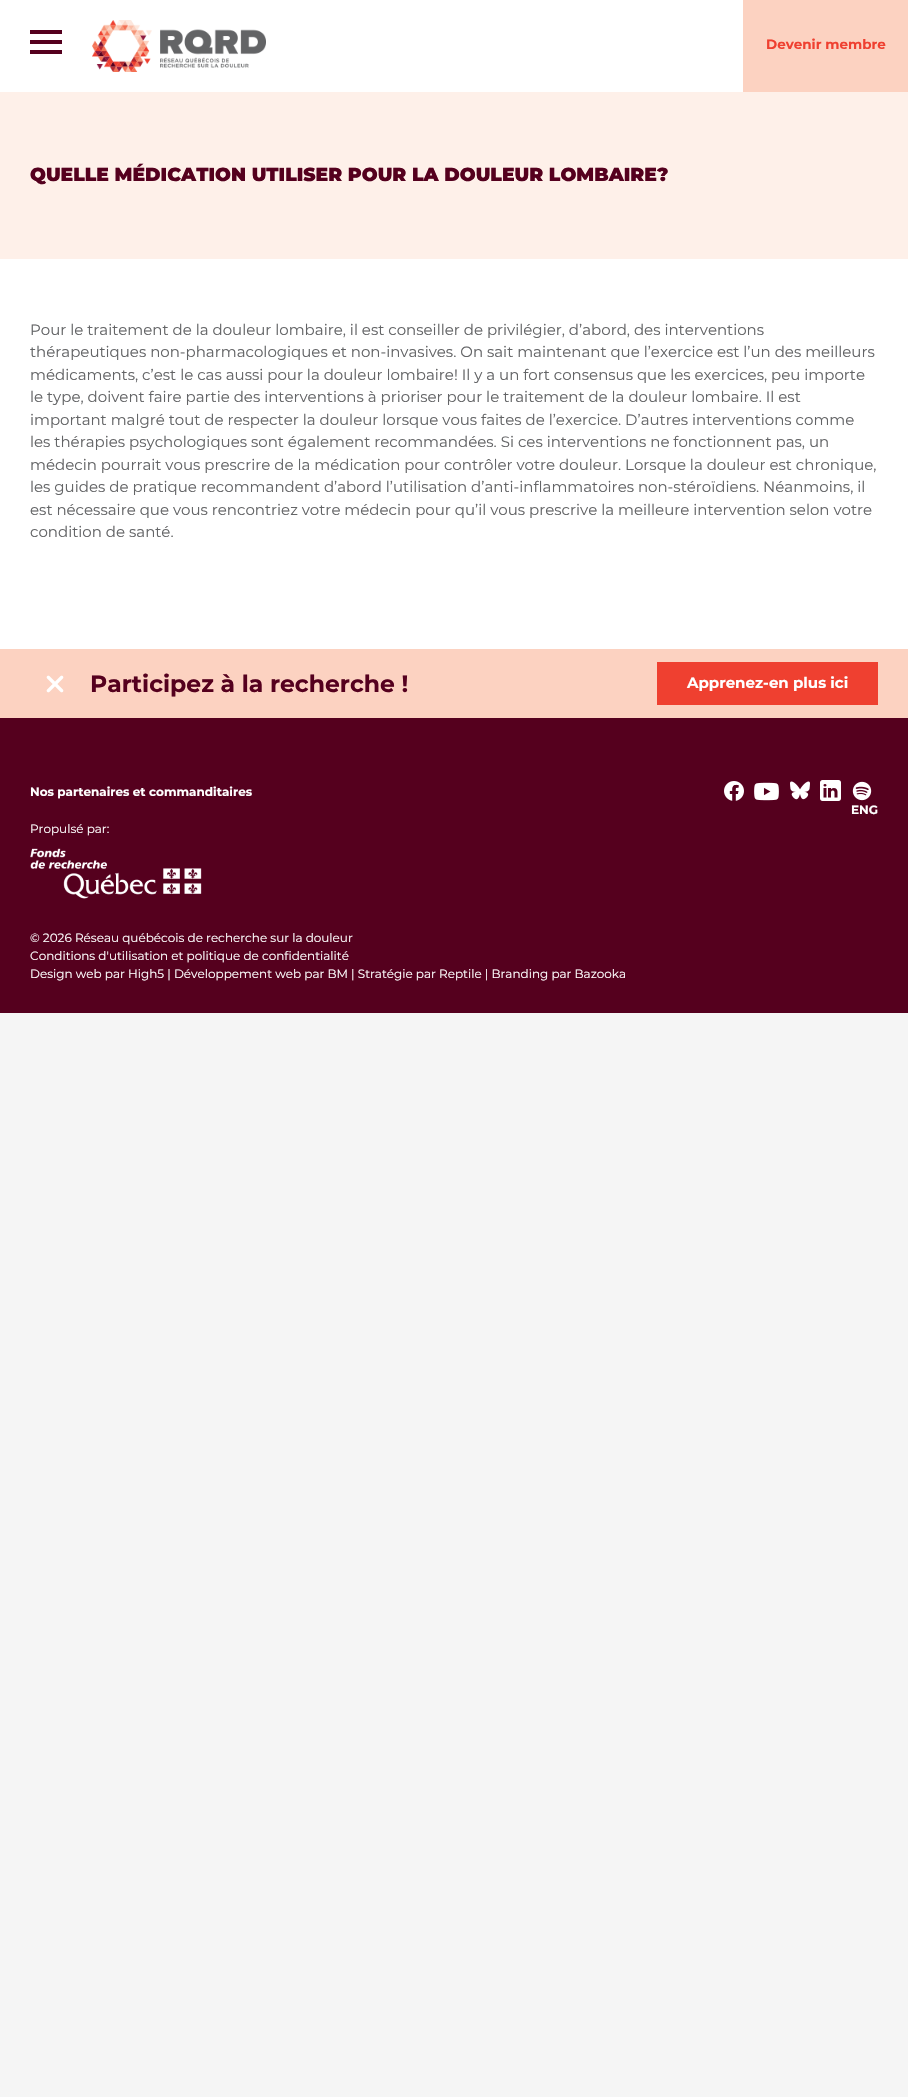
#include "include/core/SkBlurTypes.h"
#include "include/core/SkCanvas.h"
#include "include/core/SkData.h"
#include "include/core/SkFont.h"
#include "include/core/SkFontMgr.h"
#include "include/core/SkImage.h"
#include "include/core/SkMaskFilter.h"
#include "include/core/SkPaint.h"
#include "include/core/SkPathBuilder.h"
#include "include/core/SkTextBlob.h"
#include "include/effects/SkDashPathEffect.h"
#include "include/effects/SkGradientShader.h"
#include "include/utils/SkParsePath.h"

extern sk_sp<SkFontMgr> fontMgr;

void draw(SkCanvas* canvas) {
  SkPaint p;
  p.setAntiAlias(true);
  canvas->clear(SkColorSetRGB(245, 245, 245));
  p.setColor(SK_ColorWHITE);
  canvas->drawRect(SkRect::MakeLTRB(0, 0, 908, 649), p);
  p.setColor(SkColorSetRGB(85, 0, 30));
  canvas->drawRect(SkRect::MakeLTRB(30, 30, 62, 34), p);
  canvas->drawRect(SkRect::MakeLTRB(30, 40, 62, 44), p);
  canvas->drawRect(SkRect::MakeLTRB(30, 50, 62, 54), p);
  canvas->drawImageRect(SkImages::DeferredFromEncodedData(SkData::MakeFromFileName("images/1.png")), SkRect::MakeLTRB(92, 20, 266, 72), SkSamplingOptions());
  p.setColor(SkColorSetRGB(252, 210, 193));
  canvas->drawRect(SkRect::MakeLTRB(743, 0, 908, 92), p);
  p.setColor(SkColorSetRGB(254, 240, 233));
  canvas->drawRect(SkRect::MakeLTRB(0, 92, 908, 259), p);
  p.setColor(SkColorSetRGB(252, 210, 193));
  canvas->drawRect(SkRect::MakeLTRB(0, 649, 908, 718), p);
  canvas->drawImageRect(SkImages::DeferredFromEncodedData(SkData::MakeFromFileName("images/2.png")), SkRect::MakeLTRB(46, 675, 64, 693), SkSamplingOptions());
  p.setColor(SkColorSetRGB(239, 64, 48));
  canvas->drawRect(SkRect::MakeLTRB(657, 662, 878, 705), p);
  p.setColor(SkColorSetRGB(85, 0, 30));
  canvas->drawRect(SkRect::MakeLTRB(0, 718, 908, 1013), p);
  canvas->drawImageRect(SkImages::DeferredFromEncodedData(SkData::MakeFromFileName("images/3.png")), SkRect::MakeLTRB(30, 848, 202, 899), SkSamplingOptions());
  canvas->drawImageRect(SkImages::DeferredFromEncodedData(SkData::MakeFromFileName("images/4.png")), SkRect::MakeLTRB(724, 781, 744, 801), SkSamplingOptions());
  canvas->drawImageRect(SkImages::DeferredFromEncodedData(SkData::MakeFromFileName("images/5.png")), SkRect::MakeLTRB(754, 782, 779, 801), SkSamplingOptions());
  canvas->drawImageRect(SkImages::DeferredFromEncodedData(SkData::MakeFromFileName("images/6.png")), SkRect::MakeLTRB(790, 781, 810, 800), SkSamplingOptions());
  canvas->drawImageRect(SkImages::DeferredFromEncodedData(SkData::MakeFromFileName("images/7.png")), SkRect::MakeLTRB(820, 780, 841, 801), SkSamplingOptions());
  canvas->drawImageRect(SkImages::DeferredFromEncodedData(SkData::MakeFromFileName("images/8.png")), SkRect::MakeLTRB(852, 781, 872, 801), SkSamplingOptions());
  SkFont font1(fontMgr->matchFamilyStyle("Montserrat", SkFontStyle(100, SkFontStyle::kNormal_Width, SkFontStyle::kUpright_Slant)), 13.5f);
  font1.setSubpixel(true);
  p.setColor(SkColorSetRGB(239, 64, 48));
  canvas->drawString("Devenir membre", 766, 49, font1, p);
  SkFont font2(fontMgr->matchFamilyStyle("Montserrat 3", SkFontStyle(100, SkFontStyle::kNormal_Width, SkFontStyle::kUpright_Slant)), 18.75f);
  font2.setSubpixel(true);
  p.setColor(SkColorSetRGB(85, 0, 30));
  canvas->drawString("QUELLE MÉDICATION UTILISER POUR LA DOULEUR LOMBAIRE?", 30, 181, font2, p);
  SkFont font3(fontMgr->matchFamilyStyle("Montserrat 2", SkFontStyle(100, SkFontStyle::kNormal_Width, SkFontStyle::kUpright_Slant)), 15);
  font3.setSubpixel(true);
  p.setColor(SkColorSetRGB(99, 100, 102));
  canvas->drawString("Pour le traitement de la douleur lombaire, il est conseiller de privilégier, d’abord, des interventions", 30, 335, font3, p);
  canvas->drawString("thérapeutiques non-pharmacologiques et non-invasives. On sait maintenant que l’exercice est l’un des meilleurs", 30, 357, font3, p);
  canvas->drawString("médicaments, c’est le cas aussi pour la douleur lombaire! Il y a un fort consensus que les exercices, peu importe", 30, 380, font3, p);
  canvas->drawString("le type, doivent faire partie des interventions à prioriser pour le traitement de la douleur lombaire. Il est", 30, 402, font3, p);
  canvas->drawString("important malgré tout de respecter la douleur lorsque vous faites de l’exercice. D’autres interventions comme", 30, 425, font3, p);
  canvas->drawString("les thérapies psychologiques sont également recommandées. Si ces interventions ne fonctionnent pas, un", 30, 447, font3, p);
  canvas->drawString("médecin pourrait vous prescrire de la médication pour contrôler votre douleur. Lorsque la douleur est chronique,", 30, 470, font3, p);
  canvas->drawString("les guides de pratique recommandent d’abord l’utilisation d’anti-inflammatoires non-stéroïdiens. Néanmoins, il", 30, 492, font3, p);
  canvas->drawString("est nécessaire que vous rencontriez votre médecin pour qu’il vous prescrive la meilleure intervention selon votre", 30, 515, font3, p);
  canvas->drawString("condition de santé.", 30, 537, font3, p);
  SkFont font4(fontMgr->matchFamilyStyle("Montserrat", SkFontStyle(100, SkFontStyle::kNormal_Width, SkFontStyle::kUpright_Slant)), 23.5f);
  font4.setSubpixel(true);
  p.setColor(SkColorSetRGB(85, 0, 30));
  canvas->drawString("Participez à la recherche !", 90, 692, font4, p);
  SkFont font5(fontMgr->matchFamilyStyle("Montserrat", SkFontStyle(100, SkFontStyle::kNormal_Width, SkFontStyle::kUpright_Slant)), 15);
  font5.setSubpixel(true);
  p.setColor(SK_ColorWHITE);
  canvas->drawString("Apprenez-en plus ici", 687, 688, font5, p);
  SkFont font6(fontMgr->matchFamilyStyle("Montserrat", SkFontStyle(100, SkFontStyle::kNormal_Width, SkFontStyle::kUpright_Slant)), 12);
  font6.setSubpixel(true);
  canvas->drawString("Nos partenaires et commanditaires", 30, 796, font6, p);
  SkFont font7(fontMgr->matchFamilyStyle("Montserrat 2", SkFontStyle(100, SkFontStyle::kNormal_Width, SkFontStyle::kUpright_Slant)), 12);
  font7.setSubpixel(true);
  canvas->drawString("Propulsé par:", 30, 833, font7, p);
  canvas->drawString("ENG", 851, 814, font6, p);
  canvas->drawString("© 2026 Réseau québécois de recherche sur la douleur", 30, 942, font7, p);
  canvas->drawString("Conditions d'utilisation et politique de confidentialité", 30, 960, font7, p);
  canvas->drawString("Design web par High5 | Développement web par BM | Stratégie par Reptile | Branding par Bazooka", 30, 978, font7, p);
}
